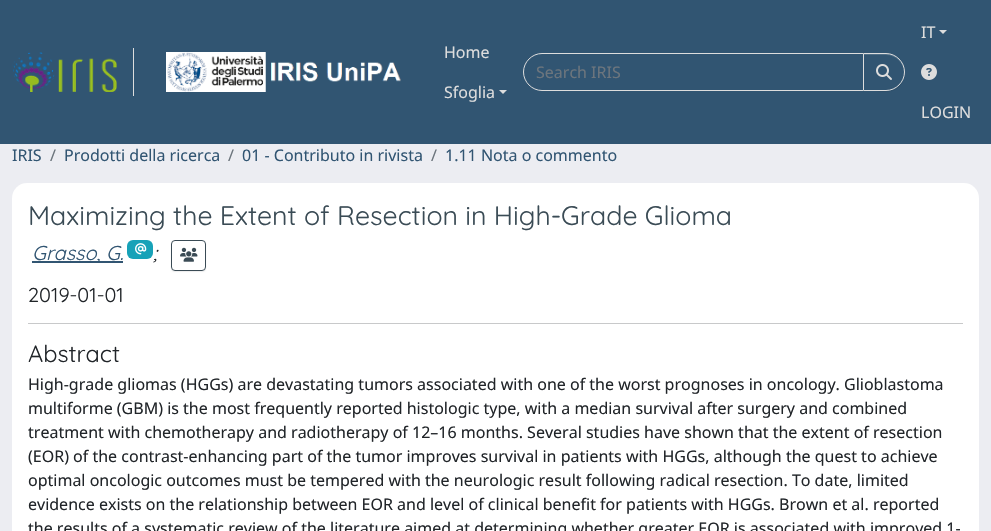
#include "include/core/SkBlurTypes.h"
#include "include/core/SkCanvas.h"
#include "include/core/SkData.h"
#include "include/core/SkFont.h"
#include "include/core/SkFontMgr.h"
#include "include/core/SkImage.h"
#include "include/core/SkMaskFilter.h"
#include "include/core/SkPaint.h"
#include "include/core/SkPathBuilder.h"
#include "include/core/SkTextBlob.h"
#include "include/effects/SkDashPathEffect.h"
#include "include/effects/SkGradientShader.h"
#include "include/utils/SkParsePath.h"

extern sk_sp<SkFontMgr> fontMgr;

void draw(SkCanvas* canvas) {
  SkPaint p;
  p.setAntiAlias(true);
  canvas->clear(SkColorSetRGB(236, 237, 242));
  p.setColor(SkColorSetRGB(49, 85, 114));
  canvas->drawRect(SkRect::MakeLTRB(0, 0, 991, 144), p);
  p.setColor(SkColorSetRGB(221, 221, 221));
  canvas->drawRect(SkRect::MakeLTRB(133, 48, 134, 96), p);
  canvas->drawImageRect(SkImages::DeferredFromEncodedData(SkData::MakeFromFileName("images/1.png")), SkRect::MakeLTRB(12, 52, 117, 92), SkSamplingOptions());
  canvas->drawImageRect(SkImages::DeferredFromEncodedData(SkData::MakeFromFileName("images/2.png")), SkRect::MakeLTRB(166, 52, 401, 92), SkSamplingOptions());
  canvas->drawPath(SkPathBuilder().moveTo(499, 90).lineTo(507, 90).lineTo(503, 94).close().detach(), p);
  p.setStyle(SkPaint::kStroke_Style);
  p.setStrokeWidth(1);
  canvas->drawPath(SkPathBuilder().moveTo(542, 53.5f).lineTo(863.5f, 53.5f).lineTo(863.5f, 90.5f).lineTo(542, 90.5f).cubicTo(532, 90.5f, 523.5f, 82, 523.5f, 72).cubicTo(523.5f, 62, 532, 53.5f, 542, 53.5f).close().detach(), p);
  p.setStyle(SkPaint::kFill_Style);
  p.setColor(SkColorSetARGB(18, 0, 0, 0));
  p.setMaskFilter(SkMaskFilter::MakeBlur(kNormal_SkBlurStyle, 0.5f));
  canvas->drawRoundRect(SkRect::MakeLTRB(863, 54, 905, 92), 19, 19, p);
  p.setMaskFilter(nullptr);
  p.setColor(SkColorSetRGB(49, 85, 114));
  canvas->drawPath(SkPathBuilder().moveTo(863, 53).lineTo(886, 53).cubicTo(896.5f, 53, 905, 61.5f, 905, 72).cubicTo(905, 82.5f, 896.5f, 91, 886, 91).lineTo(863, 91).close().detach(), p);
  p.setColor(SkColorSetRGB(80, 111, 135));
  canvas->drawPath(SkPathBuilder().moveTo(864, 55).lineTo(886, 55).cubicTo(896, 55, 904, 63, 904, 72).cubicTo(904, 64, 898, 56, 890, 54).lineTo(864, 54).close().detach(), p);
  p.setStyle(SkPaint::kStroke_Style);
  p.setColor(SkColorSetRGB(221, 221, 221));
  canvas->drawPath(SkPathBuilder().moveTo(863.5f, 53.5f).lineTo(886, 53.5f).cubicTo(896, 53.5f, 904.5f, 62, 904.5f, 72).cubicTo(904.5f, 82, 896, 90.5f, 886, 90.5f).lineTo(863.5f, 90.5f).close().detach(), p);
  canvas->drawImageRect(SkImages::DeferredFromEncodedData(SkData::MakeFromFileName("images/3.png")), SkRect::MakeLTRB(876, 64, 892, 80), SkSamplingOptions());
  p.setStyle(SkPaint::kFill_Style);
  canvas->drawPath(SkPathBuilder().moveTo(939, 30).lineTo(947, 30).lineTo(943, 34).close().detach(), p);
  canvas->drawImageRect(SkImages::DeferredFromEncodedData(SkData::MakeFromFileName("images/4.png")), SkRect::MakeLTRB(921, 64, 937, 80), SkSamplingOptions());
  p.setColor(SK_ColorWHITE);
  canvas->drawRoundRect(SkRect::MakeLTRB(12, 183, 979, 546), 15, 15, p);
  p.setColor(SkColorSetRGB(49, 85, 114));
  canvas->drawRect(SkRect::MakeLTRB(32, 261, 123, 263), p);
  p.setColor(SkColorSetRGB(23, 162, 184));
  canvas->drawRoundRect(SkRect::MakeLTRB(127, 240, 153, 259), 6, 6, p);
  canvas->drawImageRect(SkImages::DeferredFromEncodedData(SkData::MakeFromFileName("images/5.png")), SkRect::MakeLTRB(135, 243, 147, 255), SkSamplingOptions());
  canvas->save();
  canvas->clipPath(SkPathBuilder(SkPathFillType::kEvenOdd).moveTo(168, 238).lineTo(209, 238).lineTo(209, 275).lineTo(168, 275).close().moveTo(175, 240).lineTo(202, 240).cubicTo(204, 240, 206, 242, 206, 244).lineTo(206, 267).cubicTo(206, 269, 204, 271, 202, 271).lineTo(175, 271).cubicTo(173, 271, 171, 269, 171, 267).lineTo(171, 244).cubicTo(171, 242, 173, 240, 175, 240).close().detach(), true);
  p.setColor(SkColorSetARGB(18, 0, 0, 0));
  p.setMaskFilter(SkMaskFilter::MakeBlur(kNormal_SkBlurStyle, 0.5f));
  canvas->drawRoundRect(SkRect::MakeLTRB(171, 241, 206, 272), 4, 4, p);
  p.setMaskFilter(nullptr);
  canvas->restore();
  p.setStyle(SkPaint::kStroke_Style);
  p.setColor(SkColorSetRGB(58, 75, 85));
  canvas->drawRoundRect(SkRect::MakeLTRB(171.5f, 240.5f, 205.5f, 270.5f), 3.5f, 3.5f, p);
  canvas->drawImageRect(SkImages::DeferredFromEncodedData(SkData::MakeFromFileName("images/6.png")), SkRect::MakeLTRB(180, 247, 198, 262), SkSamplingOptions());
  p.setStyle(SkPaint::kFill_Style);
  p.setColor(SkColorSetRGB(200, 201, 202));
  canvas->drawRect(SkRect::MakeLTRB(28, 323, 963, 324), p);
  SkFont font1(fontMgr->matchFamilyStyle("Noto Sans", SkFontStyle::Normal()), 16);
  font1.setSubpixel(true);
  p.setColor(SkColorSetRGB(221, 221, 221));
  canvas->drawString("Home", 444, 58, font1, p);
  canvas->drawString("Sfoglia", 444, 98, font1, p);
  p.setColor(SkColorSetRGB(108, 117, 125));
  canvas->drawString("Search IRIS", 536, 78, font1, p);
  p.setColor(SkColorSetRGB(221, 221, 221));
  canvas->drawString("IT", 921, 38, font1, p);
  canvas->drawString("LOGIN", 921, 118, font1, p);
  p.setColor(SkColorSetRGB(49, 85, 114));
  canvas->drawString("IRIS", 12, 161, font1, p);
  p.setColor(SkColorSetRGB(108, 117, 125));
  canvas->drawString("/", 50, 161, font1, p);
  p.setColor(SkColorSetRGB(49, 85, 114));
  canvas->drawString("Prodotti della ricerca", 64, 161, font1, p);
  p.setColor(SkColorSetRGB(108, 117, 125));
  canvas->drawString("/", 228, 161, font1, p);
  p.setColor(SkColorSetRGB(49, 85, 114));
  canvas->drawString("01 - Contributo in rivista", 242, 161, font1, p);
  p.setColor(SkColorSetRGB(108, 117, 125));
  canvas->drawString("/", 431, 161, font1, p);
  p.setColor(SkColorSetRGB(49, 85, 114));
  canvas->drawString("1.11 Nota o commento", 445, 161, font1, p);
  SkFont font2(fontMgr->matchFamilyStyle("Quicksand", SkFontStyle(300, SkFontStyle::kNormal_Width, SkFontStyle::kUpright_Slant)), 26.75f);
  font2.setSubpixel(true);
  p.setColor(SkColorSetRGB(58, 75, 85));
  canvas->drawString("Maximizing the Extent of Resection in High-Grade Glioma", 28, 225, font2, p);
  SkFont font3(fontMgr->matchFamilyStyle("Quicksand", SkFontStyle(300, SkFontStyle::kNormal_Width, SkFontStyle::kItalic_Slant)), 20);
  font3.setSubpixel(true);
  p.setColor(SkColorSetRGB(49, 85, 114));
  canvas->drawString("Grasso, G.", 32, 260, font3, p);
  p.setColor(SkColorSetRGB(33, 37, 41));
  canvas->drawString(";", 153, 260, font3, p);
  SkFont font4(fontMgr->matchFamilyStyle("Quicksand", SkFontStyle(300, SkFontStyle::kNormal_Width, SkFontStyle::kUpright_Slant)), 20);
  font4.setSubpixel(true);
  canvas->drawString("2019-01-01", 28, 302, font4, p);
  SkFont font5(fontMgr->matchFamilyStyle("Quicksand", SkFontStyle(300, SkFontStyle::kNormal_Width, SkFontStyle::kUpright_Slant)), 23.5f);
  font5.setSubpixel(true);
  canvas->drawString("Abstract", 28, 362, font5, p);
  canvas->drawString("High-grade gliomas (HGGs) are devastating tumors associated with one of the worst prognoses in oncology. Glioblastoma", 28, 390, font1, p);
  canvas->drawString("multiforme (GBM) is the most frequently reported histologic type, with a median survival after surgery and combined", 28, 414, font1, p);
  canvas->drawString("treatment with chemotherapy and radiotherapy of 12–16 months. Several studies have shown that the extent of resection", 28, 438, font1, p);
  canvas->drawString("(EOR) of the contrast-enhancing part of the tumor improves survival in patients with HGGs, although the quest to achieve", 28, 462, font1, p);
  canvas->drawString("optimal oncologic outcomes must be tempered with the neurologic result following radical resection. To date, limited", 28, 486, font1, p);
  canvas->drawString("evidence exists on the relationship between EOR and level of clinical benefit for patients with HGGs. Brown et al. reported", 28, 510, font1, p);
  canvas->drawString("the results of a systematic review of the literature aimed at determining whether greater EOR is associated with improved 1-", 28, 534, font1, p);
}
